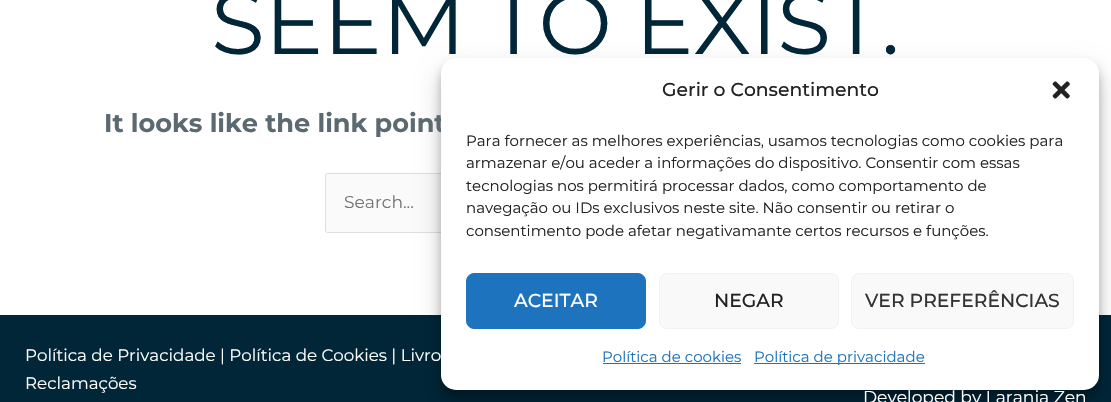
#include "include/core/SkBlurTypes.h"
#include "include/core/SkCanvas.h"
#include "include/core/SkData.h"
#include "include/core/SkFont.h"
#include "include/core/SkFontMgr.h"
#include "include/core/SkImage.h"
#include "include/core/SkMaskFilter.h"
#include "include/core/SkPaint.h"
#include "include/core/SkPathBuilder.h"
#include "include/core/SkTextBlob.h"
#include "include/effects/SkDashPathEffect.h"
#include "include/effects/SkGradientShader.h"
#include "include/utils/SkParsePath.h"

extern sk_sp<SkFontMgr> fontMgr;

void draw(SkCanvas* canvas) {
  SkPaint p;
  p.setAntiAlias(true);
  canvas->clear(SK_ColorWHITE);
  p.setColor(SkColorSetRGB(250, 250, 250));
  canvas->drawRoundRect(SkRect::MakeLTRB(325.5f, 173.5f, 787.5f, 232.5f), 2, 2, p);
  p.setStyle(SkPaint::kStroke_Style);
  p.setStrokeWidth(1);
  p.setColor(SkColorSetRGB(221, 221, 221));
  canvas->drawRoundRect(SkRect::MakeLTRB(325.5f, 173.5f, 787.5f, 232.5f), 2, 2, p);
  p.setStyle(SkPaint::kFill_Style);
  p.setColor(SkColorSetRGB(0, 38, 56));
  canvas->drawRect(SkRect::MakeLTRB(0, 315, 1111, 402), p);
  p.setColor(SkColorSetARGB(59, 0, 0, 0));
  p.setMaskFilter(SkMaskFilter::MakeBlur(kNormal_SkBlurStyle, 4));
  canvas->drawRoundRect(SkRect::MakeLTRB(441, 65, 1099, 398), 15, 15, p);
  p.setMaskFilter(nullptr);
  p.setColor(SkColorSetARGB(48, 0, 0, 0));
  p.setMaskFilter(SkMaskFilter::MakeBlur(kNormal_SkBlurStyle, 12.5f));
  canvas->drawRoundRect(SkRect::MakeLTRB(441, 70, 1099, 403), 15, 15, p);
  p.setMaskFilter(nullptr);
  SkFont font1(fontMgr->matchFamilyStyle("Montserrat", SkFontStyle::Normal()), 87.5f);
  font1.setSubpixel(true);
  p.setColor(SkColorSetRGB(0, 38, 56));
  canvas->drawString("SEEM TO EXIST.", 211, 54, font1, p);
  SkFont font2(fontMgr->matchFamilyStyle("Montserrat", SkFontStyle::Bold()), 25.6f);
  font2.setSubpixel(true);
  p.setColor(SkColorSetRGB(91, 105, 113));
  canvas->drawString("It looks like the link point", 104, 132, font2, p);
  SkFont font3(fontMgr->matchFamilyStyle("Montserrat", SkFontStyle::Normal()), 17.1f);
  font3.setSubpixel(true);
  p.setColor(SkColorSetRGB(117, 117, 117));
  canvas->drawString("Search...", 344, 208, font3, p);
  SkFont font4(fontMgr->matchFamilyStyle("Montserrat", SkFontStyle::Normal()), 16.7f);
  font4.setSubpixel(true);
  p.setColor(SK_ColorWHITE);
  canvas->drawString("Política de Privacidade | Política de Cookies | Livro", 25, 361, font4, p);
  canvas->drawString("Reclamações", 25, 389, font4, p);
  canvas->drawString("Developed by Laranja Zen", 863, 403, font3, p);
  canvas->drawRoundRect(SkRect::MakeLTRB(441, 58, 1099, 390), 15, 15, p);
  SkFont font5(fontMgr->matchFamilyStyle("Montserrat", SkFontStyle(500, SkFontStyle::kNormal_Width, SkFontStyle::kUpright_Slant)), 18.75f);
  font5.setSubpixel(true);
  p.setColor(SkColorSetRGB(34, 34, 34));
  canvas->drawString("Gerir o Consentimento", 662, 96, font5, p);
  canvas->drawImageRect(SkImages::DeferredFromEncodedData(SkData::MakeFromFileName("images/1.png")), SkRect::MakeLTRB(1052, 81, 1070, 99), SkSamplingOptions());
  SkFont font6(fontMgr->matchFamilyStyle("Montserrat", SkFontStyle::Normal()), 15);
  font6.setSubpixel(true);
  canvas->drawString("Para fornecer as melhores experiências, usamos tecnologias como cookies para", 466, 146, font6, p);
  canvas->drawString("armazenar e/ou aceder a informações do dispositivo. Consentir com essas", 466, 168, font6, p);
  canvas->drawString("tecnologias nos permitirá processar dados, como comportamento de", 466, 191, font6, p);
  canvas->drawString("navegação ou IDs exclusivos neste site. Não consentir ou retirar o", 466, 213, font6, p);
  canvas->drawString("consentimento pode afetar negativamante certos recursos e funções.", 466, 236, font6, p);
  p.setColor(SkColorSetRGB(30, 115, 190));
  canvas->drawRoundRect(SkRect::MakeLTRB(466.5f, 273.5f, 645.5f, 328.5f), 7.5f, 7.5f, p);
  p.setStyle(SkPaint::kStroke_Style);
  canvas->drawRoundRect(SkRect::MakeLTRB(466.5f, 273.5f, 645.5f, 328.5f), 7.5f, 7.5f, p);
  p.setStyle(SkPaint::kFill_Style);
  p.setColor(SK_ColorWHITE);
  canvas->drawString("ACEITAR", 514, 307, font5, p);
  p.setColor(SkColorSetRGB(249, 249, 249));
  canvas->drawRoundRect(SkRect::MakeLTRB(659.5f, 273.5f, 838.5f, 328.5f), 7.5f, 7.5f, p);
  p.setStyle(SkPaint::kStroke_Style);
  p.setColor(SkColorSetRGB(242, 242, 242));
  canvas->drawRoundRect(SkRect::MakeLTRB(659.5f, 273.5f, 838.5f, 328.5f), 7.5f, 7.5f, p);
  p.setStyle(SkPaint::kFill_Style);
  p.setColor(SkColorSetRGB(34, 34, 34));
  canvas->drawString("NEGAR", 714, 307, font5, p);
  p.setColor(SkColorSetRGB(249, 249, 249));
  canvas->drawRoundRect(SkRect::MakeLTRB(851.5f, 273.5f, 1073.5f, 328.5f), 7.5f, 7.5f, p);
  p.setStyle(SkPaint::kStroke_Style);
  p.setColor(SkColorSetRGB(242, 242, 242));
  canvas->drawRoundRect(SkRect::MakeLTRB(851.5f, 273.5f, 1073.5f, 328.5f), 7.5f, 7.5f, p);
  p.setStyle(SkPaint::kFill_Style);
  p.setColor(SkColorSetRGB(51, 51, 51));
  canvas->drawString("VER PREFERÊNCIAS", 865, 307, font5, p);
  p.setColor(SkColorSetRGB(30, 115, 190));
  canvas->drawString("Política de cookies", 602, 362, font6, p);
  canvas->drawRect(SkRect::MakeLTRB(603, 363, 741, 364), p);
  canvas->drawRect(SkRect::MakeLTRB(754, 363, 925, 364), p);
  canvas->drawString("Política de privacidade", 754, 362, font6, p);
}
